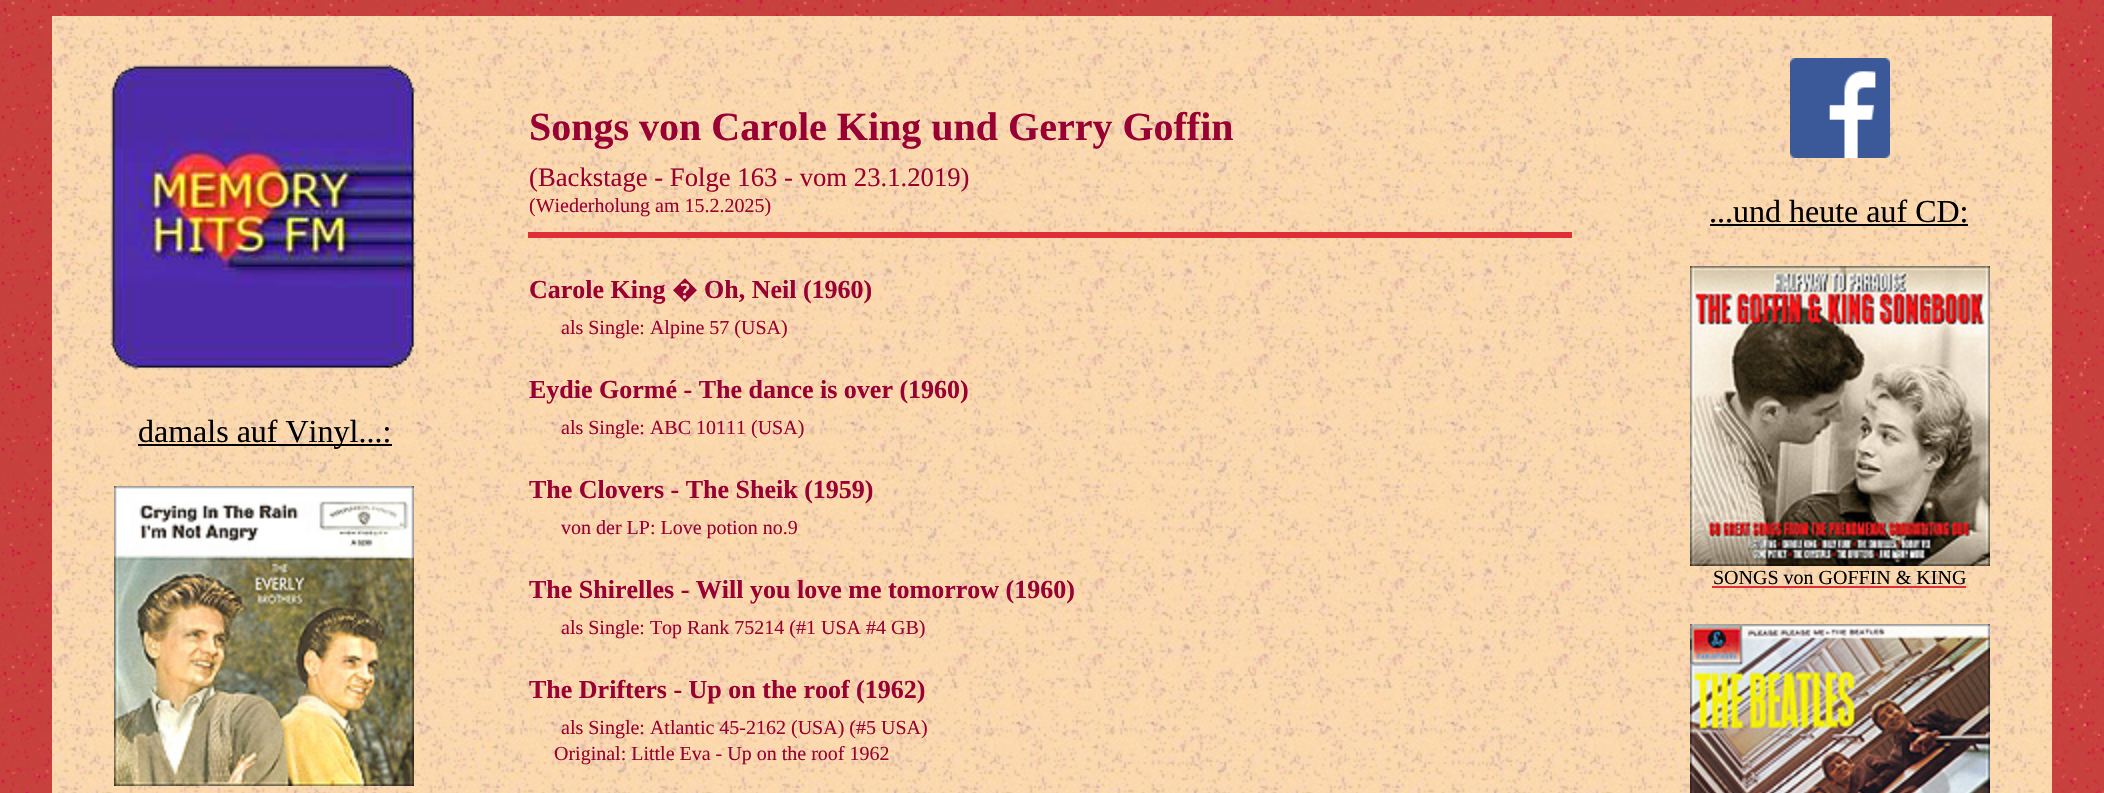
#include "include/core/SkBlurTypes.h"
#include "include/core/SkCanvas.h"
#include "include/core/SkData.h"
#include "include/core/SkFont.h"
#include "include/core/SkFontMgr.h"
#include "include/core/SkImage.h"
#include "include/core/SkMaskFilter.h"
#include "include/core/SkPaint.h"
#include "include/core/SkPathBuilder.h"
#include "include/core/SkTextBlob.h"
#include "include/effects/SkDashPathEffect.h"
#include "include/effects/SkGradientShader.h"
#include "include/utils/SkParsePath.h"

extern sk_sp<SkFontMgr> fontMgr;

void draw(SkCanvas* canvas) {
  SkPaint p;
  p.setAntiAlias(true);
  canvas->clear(SK_ColorWHITE);
  canvas->drawImageRect(SkImages::DeferredFromEncodedData(SkData::MakeFromFileName("images/1.png")), SkRect::MakeLTRB(0, 0, 2104, 793), SkSamplingOptions());
  canvas->drawImageRect(SkImages::DeferredFromEncodedData(SkData::MakeFromFileName("images/2.png")), SkRect::MakeLTRB(52, 16, 2052, 793), SkSamplingOptions());
  canvas->drawImageRect(SkImages::DeferredFromEncodedData(SkData::MakeFromFileName("images/3.png")), SkRect::MakeLTRB(110, 64, 416, 370), SkSamplingOptions());
  p.setColor(SK_ColorBLACK);
  canvas->drawRect(SkRect::MakeLTRB(138, 444, 392, 446), p);
  canvas->drawImageRect(SkImages::DeferredFromEncodedData(SkData::MakeFromFileName("images/4.png")), SkRect::MakeLTRB(114, 486, 414, 786), SkSamplingOptions());
  p.setColor(SkColorSetRGB(223, 46, 55));
  canvas->drawRect(SkRect::MakeLTRB(528, 232, 1572, 238), p);
  canvas->drawImageRect(SkImages::DeferredFromEncodedData(SkData::MakeFromFileName("images/5.png")), SkRect::MakeLTRB(1790, 58, 1890, 158), SkSamplingOptions());
  p.setColor(SK_ColorBLACK);
  canvas->drawRect(SkRect::MakeLTRB(1710, 224, 1968, 226), p);
  canvas->drawImageRect(SkImages::DeferredFromEncodedData(SkData::MakeFromFileName("images/6.png")), SkRect::MakeLTRB(1690, 266, 1990, 566), SkSamplingOptions());
  p.setColor(SkColorSetRGB(223, 46, 55));
  canvas->drawRect(SkRect::MakeLTRB(1712, 586, 1966, 588), p);
  canvas->drawImageRect(SkImages::DeferredFromEncodedData(SkData::MakeFromFileName("images/7.png")), SkRect::MakeLTRB(1690, 624, 1990, 793), SkSamplingOptions());
  SkFont font1(fontMgr->matchFamilyStyle("Liberation Serif", SkFontStyle::Normal()), 32);
  font1.setSubpixel(true);
  p.setColor(SK_ColorBLACK);
  canvas->drawString("damals auf Vinyl...:", 138, 442, font1, p);
  SkFont font2(fontMgr->matchFamilyStyle("Liberation Serif", SkFontStyle::Bold()), 40);
  font2.setSubpixel(true);
  p.setColor(SkColorSetRGB(153, 0, 51));
  canvas->drawString("Songs von Carole King und Gerry Goffin", 529, 140, font2, p);
  SkFont font3(fontMgr->matchFamilyStyle("Liberation Serif", SkFontStyle::Normal()), 26.7f);
  font3.setSubpixel(true);
  canvas->drawString("(Backstage - Folge 163 - vom 23.1.2019)", 529, 186, font3, p);
  SkFont font4(fontMgr->matchFamilyStyle("Liberation Serif", SkFontStyle::Normal()), 20);
  font4.setSubpixel(true);
  canvas->drawString("(Wiederholung am 15.2.2025)", 529, 212, font4, p);
  SkFont font5(fontMgr->matchFamilyStyle("Liberation Serif", SkFontStyle::Bold()), 26);
  font5.setSubpixel(true);
  canvas->drawString("Carole King", 529, 298, font5, p);
  SkFont font6(fontMgr->matchFamilyStyle("Noto Sans", SkFontStyle::Bold()), 26);
  font6.setSubpixel(true);
  canvas->drawString("�", 672, 298, font6, p);
  canvas->drawString("Oh, Neil (1960)", 704, 298, font5, p);
  canvas->drawString("als Single: Alpine 57 (USA)", 561, 334, font4, p);
  canvas->drawString("Eydie Gormé - The dance is over (1960)", 529, 398, font5, p);
  canvas->drawString("als Single: ABC 10111 (USA)", 561, 434, font4, p);
  canvas->drawString("The Clovers - The Sheik (1959)", 529, 498, font5, p);
  canvas->drawString("von der LP: Love potion no.9", 561, 534, font4, p);
  canvas->drawString("The Shirelles - Will you love me tomorrow (1960)", 529, 598, font5, p);
  canvas->drawString("als Single: Top Rank 75214 (#1 USA #4 GB)", 561, 634, font4, p);
  canvas->drawString("The Drifters - Up on the roof (1962)", 529, 698, font5, p);
  canvas->drawString("als Single: Atlantic 45-2162 (USA) (#5 USA)", 561, 734, font4, p);
  canvas->drawString("Original: Little Eva - Up on the roof 1962", 554, 760, font4, p);
  p.setColor(SK_ColorBLACK);
  canvas->drawString("...und heute auf CD:", 1709, 222, font1, p);
  canvas->drawString("SONGS von GOFFIN & KING", 1713, 584, font4, p);
}
